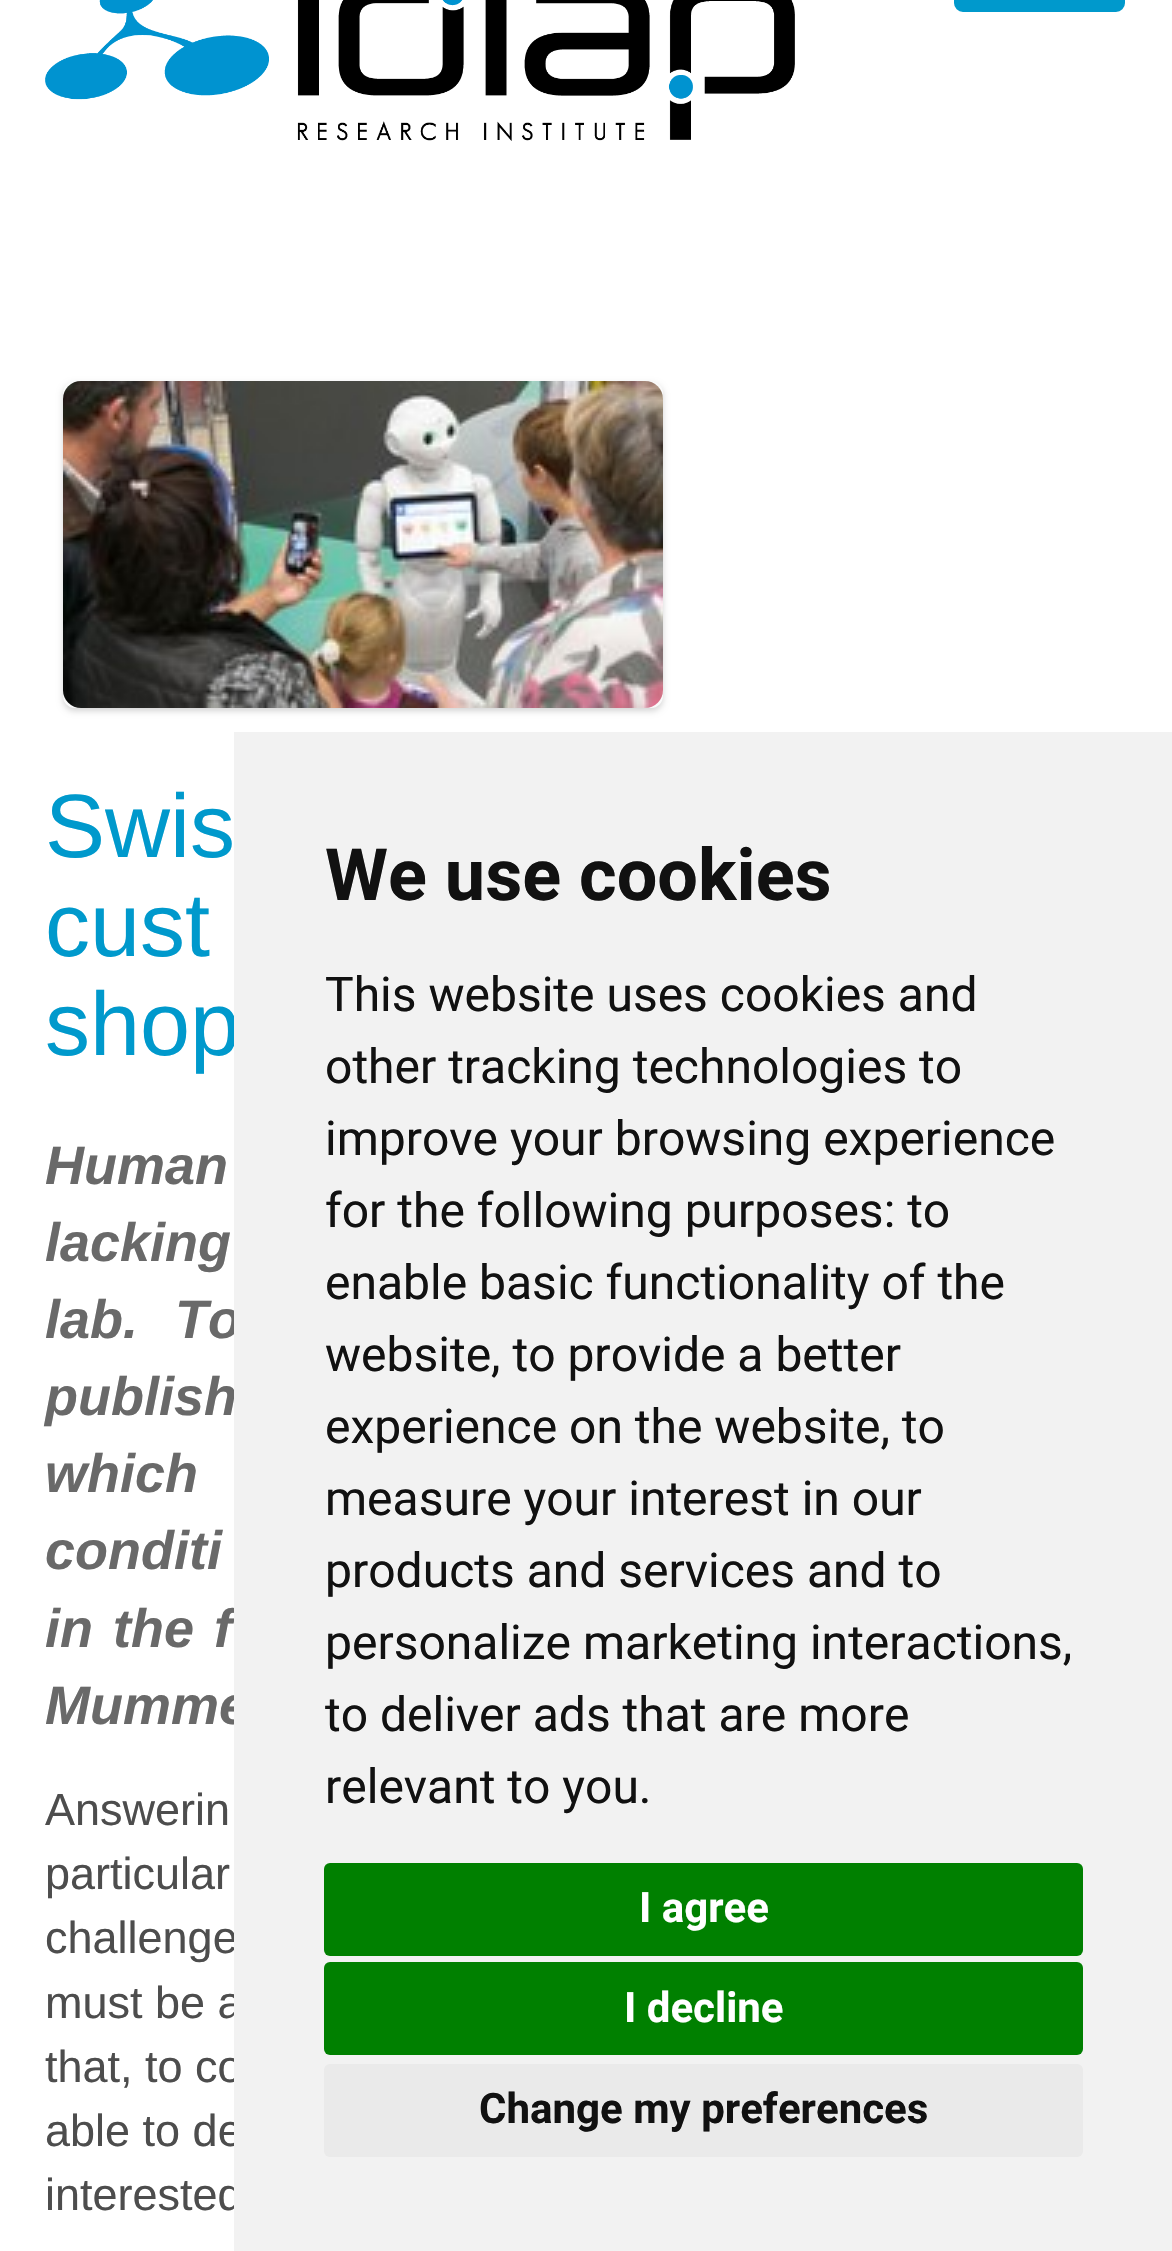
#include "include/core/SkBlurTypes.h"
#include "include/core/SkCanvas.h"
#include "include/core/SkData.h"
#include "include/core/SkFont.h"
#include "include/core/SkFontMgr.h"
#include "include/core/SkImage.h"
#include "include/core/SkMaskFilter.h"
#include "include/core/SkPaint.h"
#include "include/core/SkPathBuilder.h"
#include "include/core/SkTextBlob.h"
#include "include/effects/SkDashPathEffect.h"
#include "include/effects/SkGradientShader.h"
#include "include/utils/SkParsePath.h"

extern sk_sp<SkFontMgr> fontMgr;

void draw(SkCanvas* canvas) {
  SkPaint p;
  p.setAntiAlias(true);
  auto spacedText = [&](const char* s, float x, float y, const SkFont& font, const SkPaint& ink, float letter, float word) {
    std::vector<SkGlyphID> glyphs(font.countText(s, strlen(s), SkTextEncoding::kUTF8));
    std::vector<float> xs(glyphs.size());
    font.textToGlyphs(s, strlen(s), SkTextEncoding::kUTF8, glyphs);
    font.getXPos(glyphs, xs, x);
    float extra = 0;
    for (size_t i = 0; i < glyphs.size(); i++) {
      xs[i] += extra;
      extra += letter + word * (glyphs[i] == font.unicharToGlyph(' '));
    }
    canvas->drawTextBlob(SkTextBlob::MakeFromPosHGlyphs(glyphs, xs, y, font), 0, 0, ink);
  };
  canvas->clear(SK_ColorWHITE);
  canvas->drawImageRect(SkImages::DeferredFromEncodedData(SkData::MakeFromFileName("images/1.png")), SkRect::MakeLTRB(45, 0, 795, 141), SkSamplingOptions());
  p.setColor(SkColorSetRGB(0, 153, 204));
  canvas->drawRoundRect(SkRect::MakeLTRB(952.5f, -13.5f, 1126.5f, 13.5f), 10.5f, 10.5f, p);
  p.setStyle(SkPaint::kStroke_Style);
  p.setStrokeWidth(3);
  p.setColor(SK_ColorWHITE);
  canvas->drawRoundRect(SkRect::MakeLTRB(952.5f, -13.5f, 1126.5f, 13.5f), 10.5f, 10.5f, p);
  p.setStyle(SkPaint::kFill_Style);
  p.setColor(SkColorSetARGB(43, 0, 0, 0));
  p.setMaskFilter(SkMaskFilter::MakeBlur(kNormal_SkBlurStyle, 3));
  canvas->drawRoundRect(SkRect::MakeLTRB(63, 384, 663, 711), 12, 12, p);
  p.setMaskFilter(nullptr);
  p.setColor(SkColorSetRGB(250, 250, 250));
  canvas->drawRoundRect(SkRect::MakeLTRB(63, 381, 663, 708), 12, 12, p);
  canvas->drawImageRect(SkImages::DeferredFromEncodedData(SkData::MakeFromFileName("images/2.png")), SkRect::MakeLTRB(63, 381, 663, 708), SkSamplingOptions());
  SkFont font1(fontMgr->matchFamilyStyle("Liberation Sans", SkFontStyle::Normal()), 90);
  font1.setSubpixel(true);
  p.setColor(SkColorSetRGB(0, 153, 204));
  canvas->drawString("Swis", 45, 857, font1, p);
  canvas->drawString("cust", 45, 956, font1, p);
  canvas->drawString("shop", 45, 1055, font1, p);
  SkFont font2(fontMgr->matchFamilyStyle("Liberation Sans", SkFontStyle::BoldItalic()), 54);
  font2.setSubpixel(true);
  p.setColor(SkColorSetRGB(105, 105, 105));
  spacedText("Human", 45, 1184, font2, p, 0, 60);
  spacedText("lacking", 45, 1261, font2, p, 0, 10);
  spacedText("lab. To", 45, 1338, font2, p, 0, 22);
  spacedText("publish", 45, 1415, font2, p, 0, 4);
  spacedText("which", 45, 1492, font2, p, 0, 8);
  spacedText("conditi", 45, 1569, font2, p, 0, 8);
  spacedText("in the f", 45, 1647, font2, p, 0, 5);
  canvas->drawString("Mumme", 45, 1724, font2, p);
  SkFont font3(fontMgr->matchFamilyStyle("Liberation Sans", SkFontStyle::Normal()), 45);
  font3.setSubpixel(true);
  p.setColor(SkColorSetRGB(77, 77, 77));
  canvas->drawString("Answerin", 45, 1825, font3, p);
  canvas->drawString("particular", 45, 1889, font3, p);
  canvas->drawString("challenge", 45, 1953, font3, p);
  canvas->drawString("must be a", 45, 2018, font3, p);
  canvas->drawString("that, to co", 45, 2082, font3, p);
  canvas->drawString("able to de", 45, 2146, font3, p);
  canvas->drawString("interested", 45, 2210, font3, p);
  p.setColor(SkColorSetRGB(242, 242, 242));
  canvas->drawRect(SkRect::MakeLTRB(234, 732, 1172, 2251), p);
  SkFont font4(fontMgr->matchFamilyStyle("Roboto", SkFontStyle::Bold()), 72);
  font4.setSubpixel(true);
  p.setColor(SkColorSetRGB(17, 17, 17));
  canvas->drawString("We use cookies", 325, 900, font4, p);
  SkFont font5(fontMgr->matchFamilyStyle("Roboto", SkFontStyle::Normal()), 48);
  font5.setSubpixel(true);
  canvas->drawString("This website uses cookies and", 325, 1011, font5, p);
  canvas->drawString("other tracking technologies to", 325, 1083, font5, p);
  canvas->drawString("improve your browsing experience", 325, 1155, font5, p);
  canvas->drawString("for the following purposes: to", 325, 1227, font5, p);
  canvas->drawString("enable basic functionality of the", 325, 1299, font5, p);
  canvas->drawString("website, to provide a better", 325, 1371, font5, p);
  canvas->drawString("experience on the website, to", 325, 1443, font5, p);
  canvas->drawString("measure your interest in our", 325, 1515, font5, p);
  canvas->drawString("products and services and to", 325, 1587, font5, p);
  canvas->drawString("personalize marketing interactions,", 325, 1659, font5, p);
  canvas->drawString("to deliver ads that are more", 325, 1731, font5, p);
  canvas->drawString("relevant to you.", 325, 1803, font5, p);
  p.setColor(SkColorSetRGB(0, 128, 0));
  canvas->drawRoundRect(SkRect::MakeLTRB(324, 1863, 1083, 1956), 6, 6, p);
  SkFont font6(fontMgr->matchFamilyStyle("Roboto", SkFontStyle::Bold()), 42);
  font6.setSubpixel(true);
  p.setColor(SK_ColorWHITE);
  canvas->drawString("I agree", 639, 1922, font6, p);
  p.setColor(SkColorSetRGB(0, 128, 0));
  canvas->drawRoundRect(SkRect::MakeLTRB(324, 1962, 1083, 2055), 6, 6, p);
  p.setColor(SK_ColorWHITE);
  canvas->drawString("I decline", 624, 2022, font6, p);
  p.setColor(SkColorSetRGB(234, 234, 234));
  canvas->drawRoundRect(SkRect::MakeLTRB(324, 2064, 1083, 2157), 6, 6, p);
  p.setColor(SkColorSetRGB(17, 17, 17));
  canvas->drawString("Change my preferences", 479, 2123, font6, p);
}
